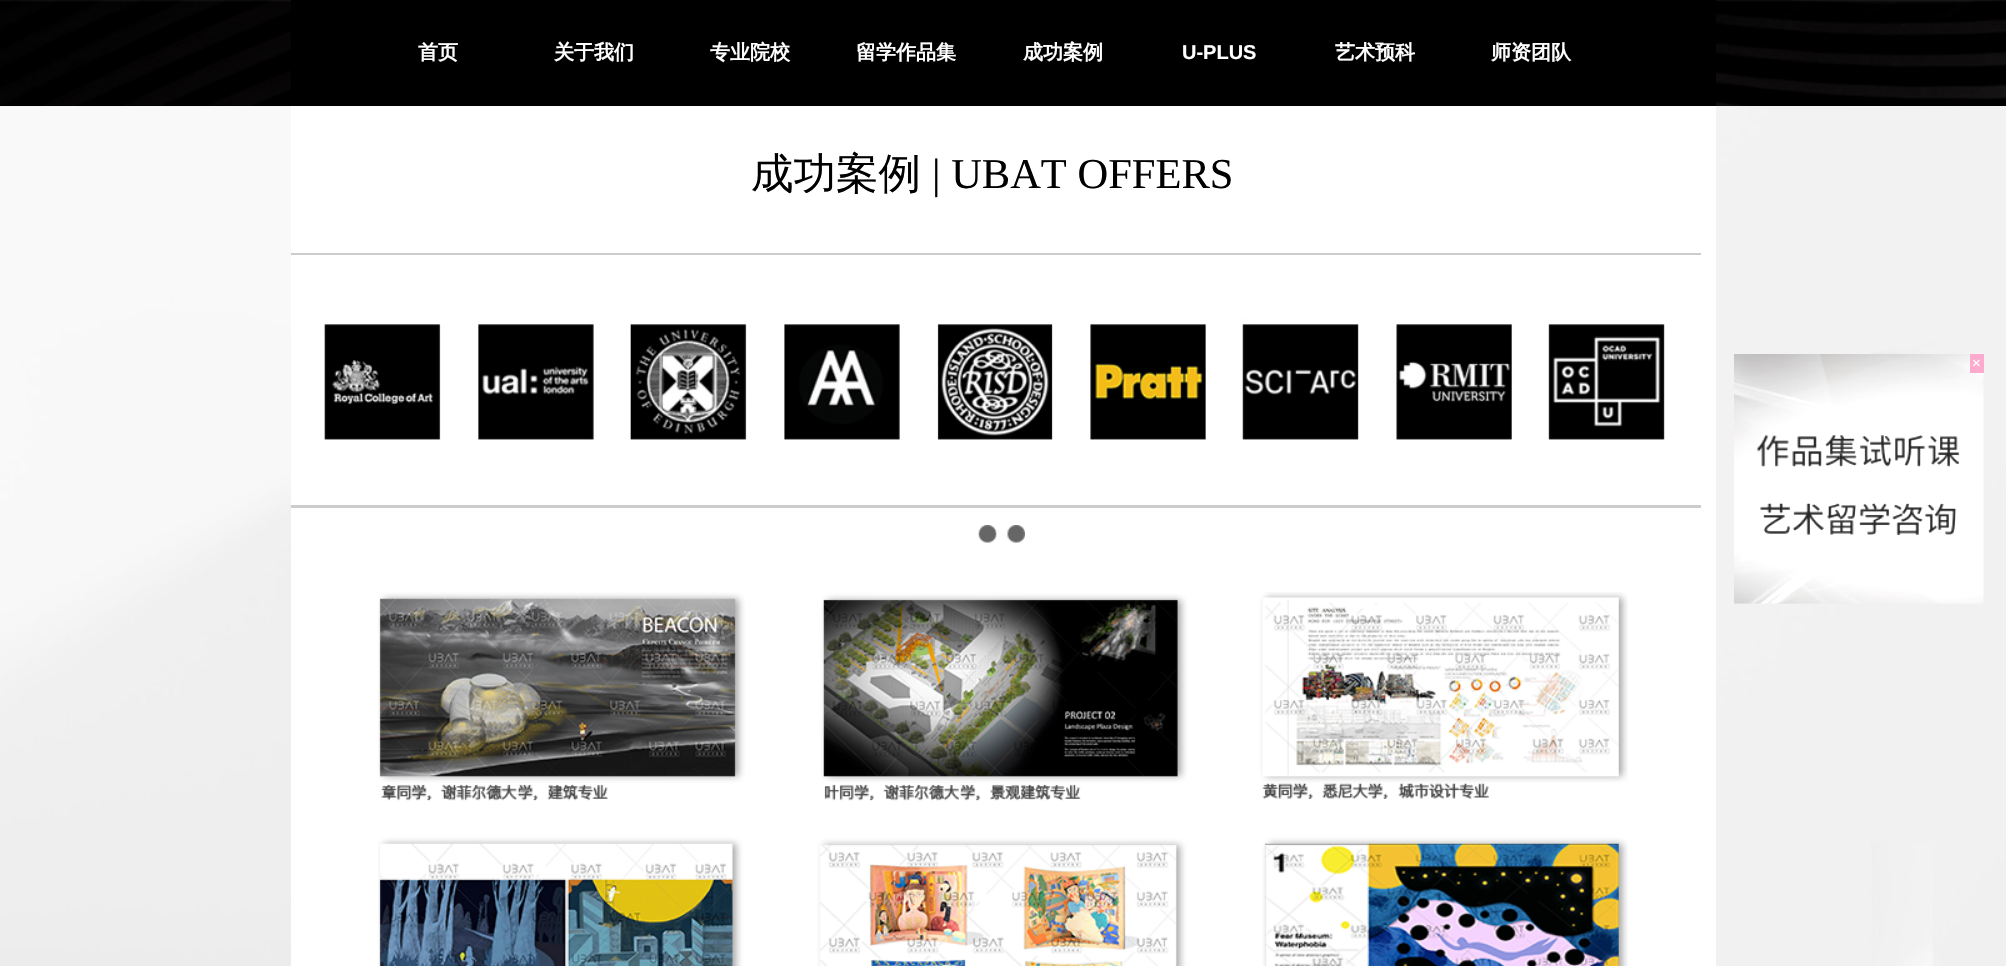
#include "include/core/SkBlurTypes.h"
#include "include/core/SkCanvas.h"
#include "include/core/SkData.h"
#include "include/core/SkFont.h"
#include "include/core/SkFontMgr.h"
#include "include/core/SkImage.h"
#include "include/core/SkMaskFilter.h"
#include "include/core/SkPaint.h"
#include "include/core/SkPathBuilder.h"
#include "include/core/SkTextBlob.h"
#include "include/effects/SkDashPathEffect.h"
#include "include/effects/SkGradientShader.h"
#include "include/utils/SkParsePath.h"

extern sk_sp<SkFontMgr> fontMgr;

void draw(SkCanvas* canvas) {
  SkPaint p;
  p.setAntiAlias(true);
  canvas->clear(SK_ColorWHITE);
  canvas->drawImageRect(SkImages::DeferredFromEncodedData(SkData::MakeFromFileName("images/1.png")), SkRect::MakeLTRB(0, 0, 2006, 106), SkSamplingOptions());
  p.setColor(SK_ColorBLACK);
  canvas->drawRect(SkRect::MakeLTRB(291, 0, 1716, 106), p);
  canvas->drawImageRect(SkImages::DeferredFromEncodedData(SkData::MakeFromFileName("images/2.png")), SkRect::MakeLTRB(0, 106, 2006, 107), SkSamplingOptions());
  canvas->drawImageRect(SkImages::DeferredFromEncodedData(SkData::MakeFromFileName("images/3.png")), SkRect::MakeLTRB(0, 106, 2006, 966), SkSamplingOptions());
  p.setColor(SK_ColorWHITE);
  canvas->drawRect(SkRect::MakeLTRB(291, 106, 1716, 966), p);
  p.setColor(SkColorSetRGB(204, 204, 204));
  canvas->drawRect(SkRect::MakeLTRB(291, 253, 1701, 256), p);
  canvas->drawRect(SkRect::MakeLTRB(291, 505, 1701, 508), p);
  canvas->drawImageRect(SkImages::DeferredFromEncodedData(SkData::MakeFromFileName("images/4.png")), SkRect::MakeLTRB(291, 255, 1701, 440), SkSamplingOptions());
  canvas->drawImageRect(SkImages::DeferredFromEncodedData(SkData::MakeFromFileName("images/5.png")), SkRect::MakeLTRB(978, 525, 997, 543), SkSamplingOptions());
  canvas->drawImageRect(SkImages::DeferredFromEncodedData(SkData::MakeFromFileName("images/6.png")), SkRect::MakeLTRB(1007, 525, 1025, 543), SkSamplingOptions());
  canvas->drawImageRect(SkImages::DeferredFromEncodedData(SkData::MakeFromFileName("images/7.png")), SkRect::MakeLTRB(378, 592, 1628, 966), SkSamplingOptions());
  canvas->drawImageRect(SkImages::DeferredFromEncodedData(SkData::MakeFromFileName("images/8.png")), SkRect::MakeLTRB(1734, 354, 1984, 604), SkSamplingOptions());
  p.setColor(SkColorSetRGB(252, 171, 207));
  canvas->drawRect(SkRect::MakeLTRB(1970, 354, 1984, 373), p);
  p.setColor(SkColorSetARGB(18, 255, 255, 255));
  canvas->drawRect(SkRect::MakeLTRB(1917, 450, 1920, 460), p);
  SkFont font1(fontMgr->matchFamilyStyle("WenQuanYi Zen Hei", SkFontStyle::Bold()), 20);
  font1.setSubpixel(true);
  p.setColor(SK_ColorWHITE);
  canvas->drawString("首页", 418, 59, font1, p);
  canvas->drawString("关于我们", 554, 59, font1, p);
  canvas->drawString("专业院校", 710, 59, font1, p);
  canvas->drawString("留学作品集", 856, 59, font1, p);
  canvas->drawString("成功案例", 1023, 59, font1, p);
  SkFont font2(fontMgr->matchFamilyStyle("Liberation Sans", SkFontStyle::Bold()), 20);
  font2.setSubpixel(true);
  canvas->drawString("U-PLUS", 1182, 59, font2, p);
  canvas->drawString("艺术预科", 1335, 59, font1, p);
  canvas->drawString("师资团队", 1491, 59, font1, p);
  SkFont font3(fontMgr->matchFamilyStyle("WenQuanYi Zen Hei", SkFontStyle(500, SkFontStyle::kNormal_Width, SkFontStyle::kUpright_Slant)), 42.5f);
  font3.setSubpixel(true);
  p.setColor(SK_ColorBLACK);
  canvas->drawString("成功案例", 751, 188, font3, p);
  SkFont font4(fontMgr->matchFamilyStyle("Liberation Serif", SkFontStyle::Normal()), 42.5f);
  font4.setSubpixel(true);
  canvas->drawString("| UBAT OFFERS", 932, 188, font4, p);
  SkFont font5(fontMgr->matchFamilyStyle("Liberation Sans", SkFontStyle::Normal()), 15);
  font5.setSubpixel(true);
  p.setColor(SK_ColorWHITE);
  canvas->drawString("×", 1972, 368, font5, p);
}
